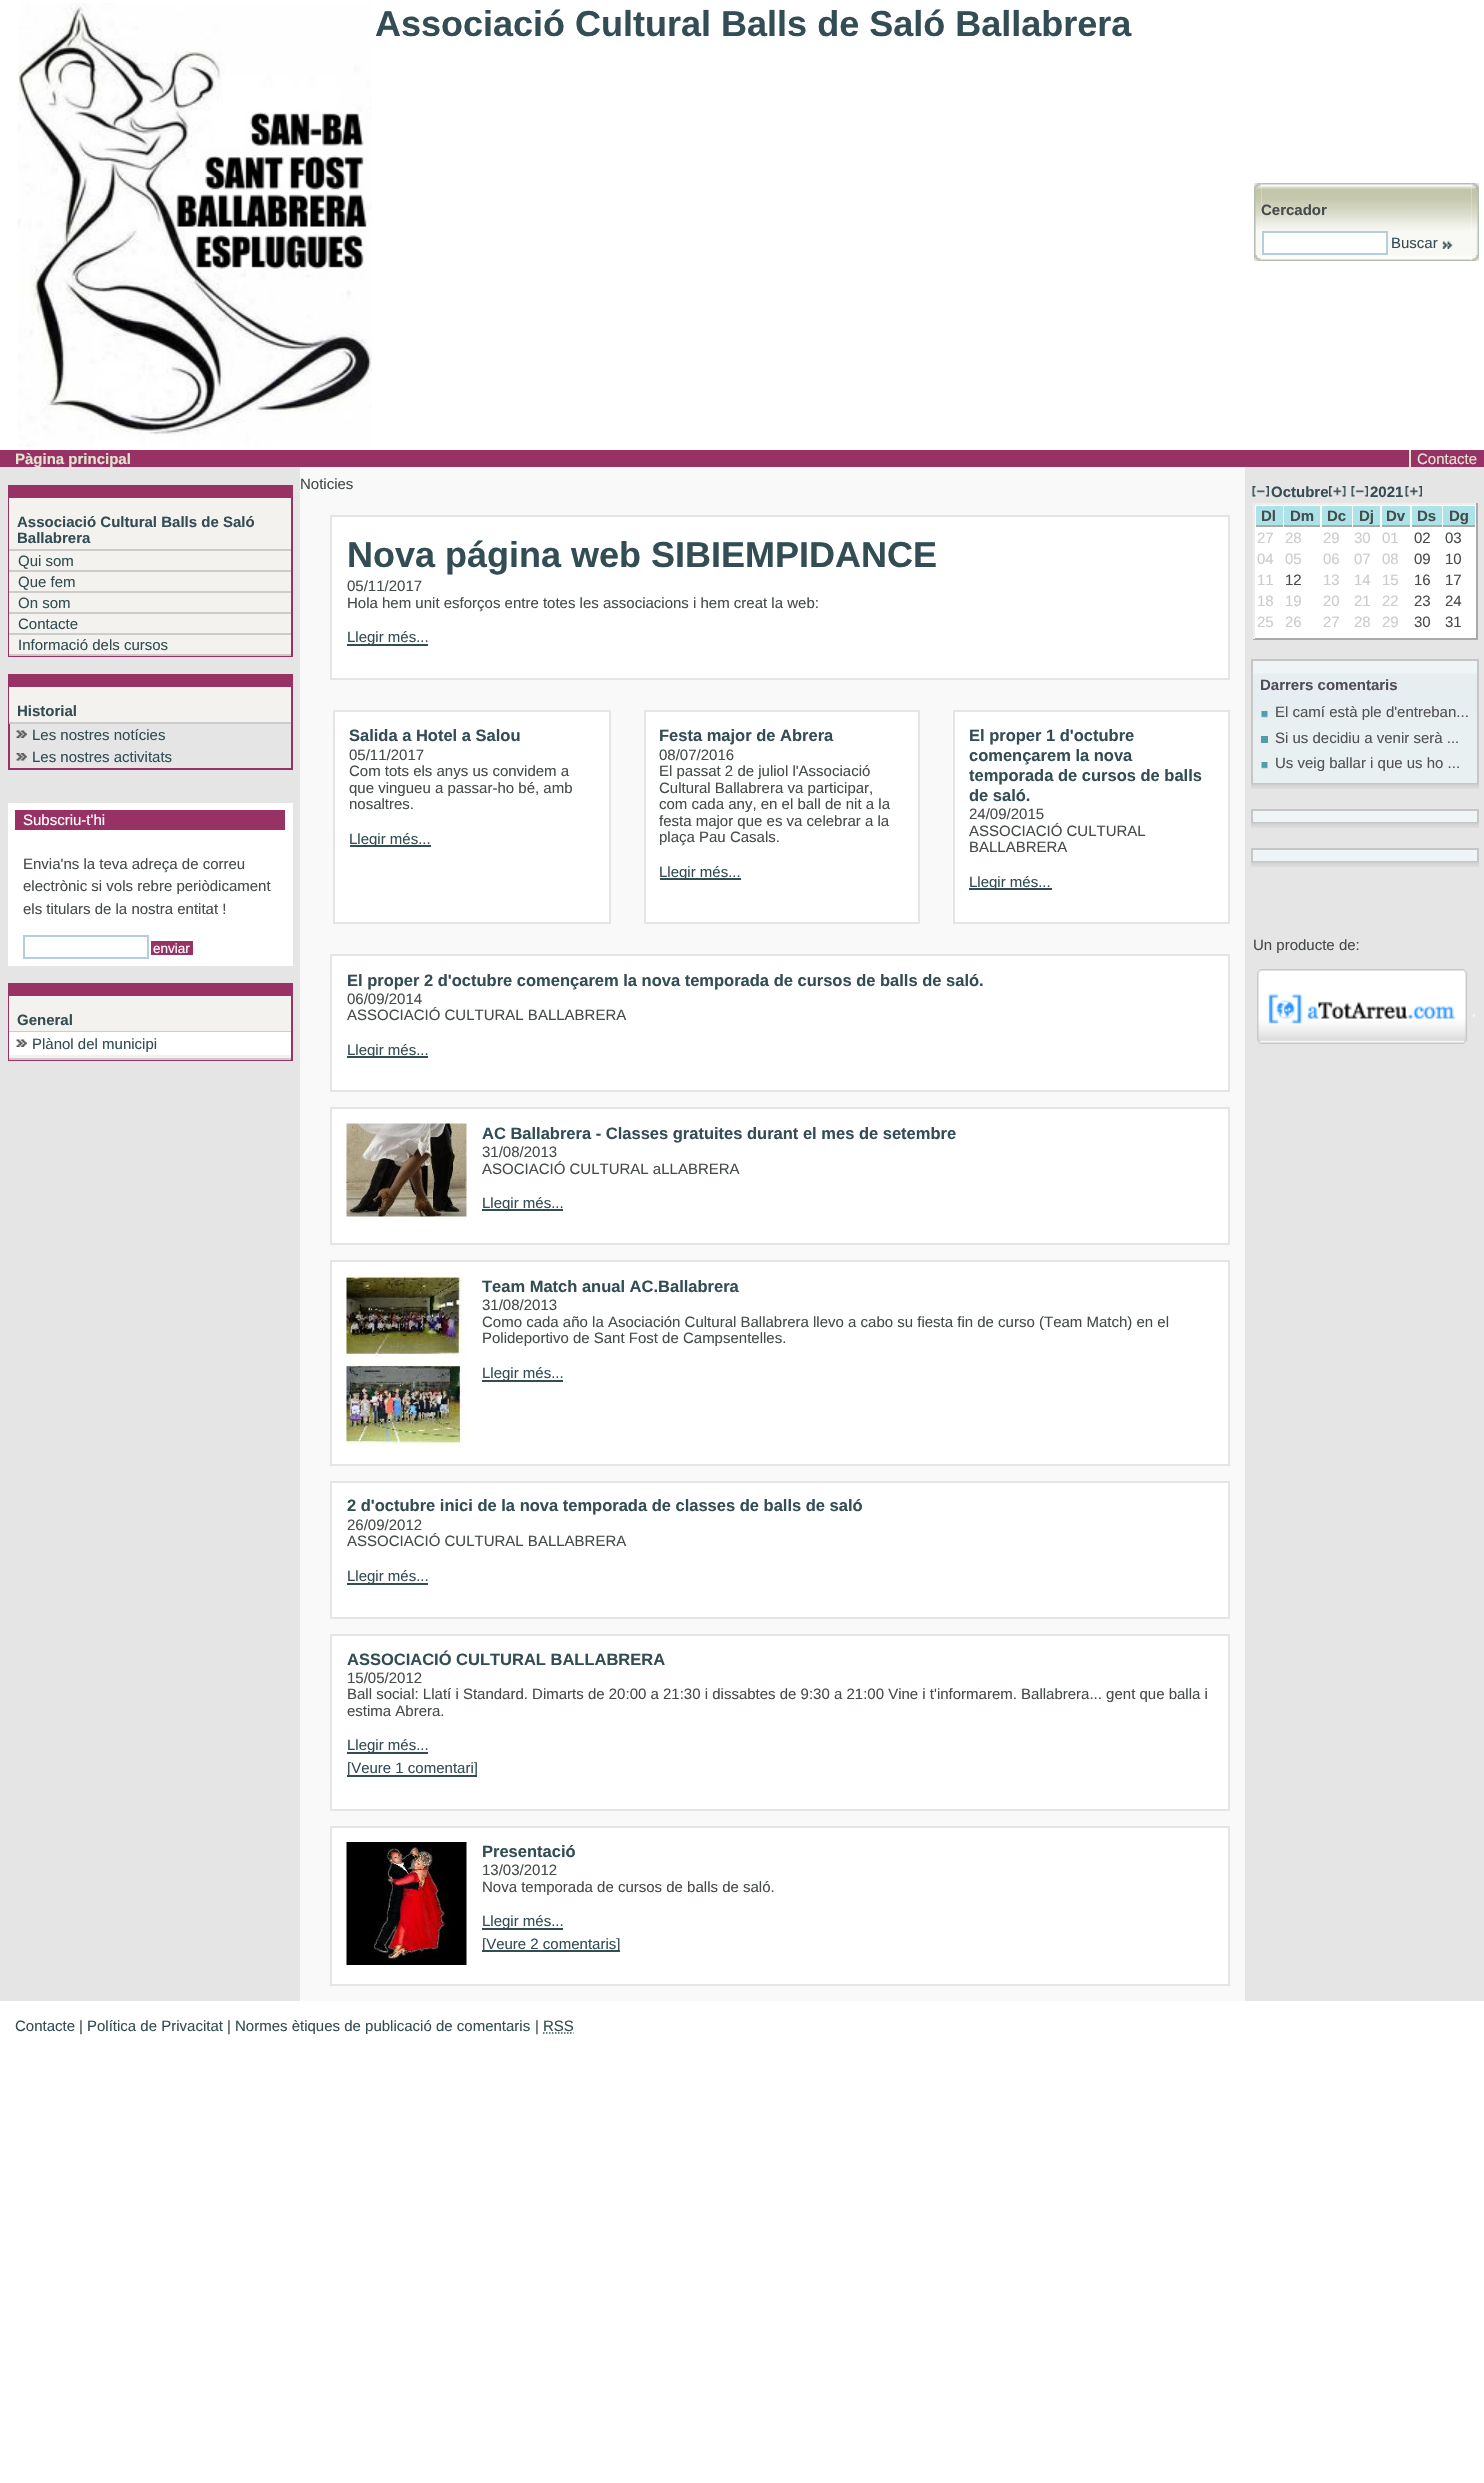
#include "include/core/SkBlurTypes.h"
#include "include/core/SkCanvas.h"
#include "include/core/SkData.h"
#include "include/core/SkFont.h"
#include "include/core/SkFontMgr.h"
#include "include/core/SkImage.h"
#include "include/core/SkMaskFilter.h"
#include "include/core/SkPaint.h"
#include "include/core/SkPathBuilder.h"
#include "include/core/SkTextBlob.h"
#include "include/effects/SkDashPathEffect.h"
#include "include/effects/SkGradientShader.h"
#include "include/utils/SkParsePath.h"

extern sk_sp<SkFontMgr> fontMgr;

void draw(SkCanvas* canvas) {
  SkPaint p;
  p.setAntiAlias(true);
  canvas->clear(SK_ColorWHITE);
  canvas->drawImageRect(SkImages::DeferredFromEncodedData(SkData::MakeFromFileName("images/1.png")), SkRect::MakeLTRB(18, 3, 372, 447), SkSamplingOptions());
  canvas->drawImageRect(SkImages::DeferredFromEncodedData(SkData::MakeFromFileName("images/3.png")), SkRect::MakeLTRB(1261, 183, 1472, 189), SkSamplingOptions());
  canvas->drawImageRect(SkImages::DeferredFromEncodedData(SkData::MakeFromFileName("images/2.png")), SkRect::MakeLTRB(1254, 183, 1262, 189), SkSamplingOptions());
  canvas->drawImageRect(SkImages::DeferredFromEncodedData(SkData::MakeFromFileName("images/4.png")), SkRect::MakeLTRB(1471, 183, 1479, 189), SkSamplingOptions());
  canvas->drawImageRect(SkImages::DeferredFromEncodedData(SkData::MakeFromFileName("images/6.png")), SkRect::MakeLTRB(1261, 189, 1472, 231), SkSamplingOptions());
  canvas->drawImageRect(SkImages::DeferredFromEncodedData(SkData::MakeFromFileName("images/5.png")), SkRect::MakeLTRB(1254, 189, 1262, 231), SkSamplingOptions());
  canvas->drawImageRect(SkImages::DeferredFromEncodedData(SkData::MakeFromFileName("images/7.png")), SkRect::MakeLTRB(1471, 189, 1479, 231), SkSamplingOptions());
  canvas->drawImageRect(SkImages::DeferredFromEncodedData(SkData::MakeFromFileName("images/8.png")), SkRect::MakeLTRB(1254, 231, 1262, 255), SkSamplingOptions());
  p.setColor(SkColorSetRGB(248, 248, 245));
  canvas->drawRect(SkRect::MakeLTRB(1388, 231, 1472, 255), p);
  p.setStyle(SkPaint::kStroke_Style);
  p.setStrokeWidth(2);
  p.setColor(SkColorSetRGB(182, 205, 224));
  canvas->drawRect(SkRect::MakeLTRB(1263, 232, 1387, 254), p);
  canvas->drawImageRect(SkImages::DeferredFromEncodedData(SkData::MakeFromFileName("images/9.png")), SkRect::MakeLTRB(1442, 241, 1453, 249), SkSamplingOptions());
  canvas->drawImageRect(SkImages::DeferredFromEncodedData(SkData::MakeFromFileName("images/10.png")), SkRect::MakeLTRB(1472, 231, 1479, 255), SkSamplingOptions());
  canvas->drawImageRect(SkImages::DeferredFromEncodedData(SkData::MakeFromFileName("images/12.png")), SkRect::MakeLTRB(1261, 255, 1472, 261), SkSamplingOptions());
  canvas->drawImageRect(SkImages::DeferredFromEncodedData(SkData::MakeFromFileName("images/11.png")), SkRect::MakeLTRB(1254, 255, 1262, 261), SkSamplingOptions());
  canvas->drawImageRect(SkImages::DeferredFromEncodedData(SkData::MakeFromFileName("images/13.png")), SkRect::MakeLTRB(1471, 255, 1479, 261), SkSamplingOptions());
  p.setStyle(SkPaint::kFill_Style);
  p.setColor(SkColorSetRGB(152, 50, 101));
  canvas->drawRect(SkRect::MakeLTRB(0, 450, 1484, 467), p);
  p.setColor(SkColorSetRGB(223, 230, 207));
  canvas->drawRect(SkRect::MakeLTRB(1409, 450, 1411, 467), p);
  p.setColor(SkColorSetRGB(229, 229, 229));
  canvas->drawRect(SkRect::MakeLTRB(0, 467, 300, 2001), p);
  p.setStyle(SkPaint::kStroke_Style);
  p.setColor(SkColorSetRGB(152, 50, 101));
  canvas->drawRect(SkRect::MakeLTRB(9, 486, 292, 656), p);
  p.setStyle(SkPaint::kFill_Style);
  canvas->drawRect(SkRect::MakeLTRB(10, 487, 291, 498), p);
  p.setColor(SkColorSetRGB(243, 242, 238));
  canvas->drawRect(SkRect::MakeLTRB(9, 498, 291, 549), p);
  canvas->drawRect(SkRect::MakeLTRB(9, 551, 291, 654), p);
  p.setColor(SkColorSetRGB(204, 204, 204));
  canvas->drawRect(SkRect::MakeLTRB(9, 549, 291, 551), p);
  canvas->drawRect(SkRect::MakeLTRB(9, 570, 291, 572), p);
  canvas->drawRect(SkRect::MakeLTRB(9, 591, 291, 593), p);
  canvas->drawRect(SkRect::MakeLTRB(9, 612, 291, 614), p);
  canvas->drawRect(SkRect::MakeLTRB(9, 633, 291, 635), p);
  canvas->drawRect(SkRect::MakeLTRB(9, 654, 291, 656), p);
  p.setStyle(SkPaint::kStroke_Style);
  p.setColor(SkColorSetRGB(152, 50, 101));
  canvas->drawRect(SkRect::MakeLTRB(9, 675, 292, 769), p);
  p.setStyle(SkPaint::kFill_Style);
  canvas->drawRect(SkRect::MakeLTRB(10, 676, 291, 687), p);
  p.setColor(SkColorSetRGB(243, 242, 238));
  canvas->drawRect(SkRect::MakeLTRB(9, 687, 291, 722), p);
  p.setColor(SkColorSetRGB(204, 204, 204));
  canvas->drawRect(SkRect::MakeLTRB(9, 722, 291, 724), p);
  canvas->drawImageRect(SkImages::DeferredFromEncodedData(SkData::MakeFromFileName("images/14.png")), SkRect::MakeLTRB(16, 730, 27, 738), SkSamplingOptions());
  canvas->drawImageRect(SkImages::DeferredFromEncodedData(SkData::MakeFromFileName("images/15.png")), SkRect::MakeLTRB(16, 753, 27, 761), SkSamplingOptions());
  p.setColor(SK_ColorWHITE);
  canvas->drawRect(SkRect::MakeLTRB(8, 803, 293, 966), p);
  p.setColor(SkColorSetRGB(152, 50, 101));
  canvas->drawRect(SkRect::MakeLTRB(15, 810, 285, 830), p);
  p.setStyle(SkPaint::kStroke_Style);
  p.setColor(SkColorSetRGB(182, 205, 224));
  canvas->drawRect(SkRect::MakeLTRB(24, 936, 148, 958), p);
  p.setStyle(SkPaint::kFill_Style);
  p.setColor(SkColorSetRGB(152, 50, 101));
  canvas->drawRect(SkRect::MakeLTRB(151, 941, 193, 955), p);
  p.setStyle(SkPaint::kStroke_Style);
  canvas->drawRect(SkRect::MakeLTRB(9, 984, 292, 1060), p);
  p.setStyle(SkPaint::kFill_Style);
  canvas->drawRect(SkRect::MakeLTRB(10, 985, 291, 996), p);
  p.setColor(SkColorSetRGB(243, 242, 238));
  canvas->drawRect(SkRect::MakeLTRB(9, 996, 291, 1031), p);
  p.setColor(SkColorSetRGB(204, 204, 204));
  canvas->drawRect(SkRect::MakeLTRB(9, 1031, 291, 1032), p);
  p.setColor(SK_ColorWHITE);
  canvas->drawRect(SkRect::MakeLTRB(9, 1032, 291, 1055), p);
  canvas->drawImageRect(SkImages::DeferredFromEncodedData(SkData::MakeFromFileName("images/16.png")), SkRect::MakeLTRB(16, 1039, 27, 1047), SkSamplingOptions());
  p.setColor(SkColorSetRGB(243, 242, 238));
  canvas->drawRect(SkRect::MakeLTRB(9, 1055, 291, 1058), p);
  p.setColor(SkColorSetRGB(204, 204, 204));
  canvas->drawRect(SkRect::MakeLTRB(9, 1058, 291, 1060), p);
  p.setColor(SkColorSetRGB(249, 249, 249));
  canvas->drawRect(SkRect::MakeLTRB(300, 467, 1245, 2001), p);
  p.setColor(SK_ColorWHITE);
  canvas->drawRect(SkRect::MakeLTRB(331, 516, 1229, 679), p);
  p.setStyle(SkPaint::kStroke_Style);
  p.setColor(SkColorSetRGB(229, 229, 229));
  canvas->drawRect(SkRect::MakeLTRB(331, 516, 1229, 679), p);
  p.setStyle(SkPaint::kFill_Style);
  p.setColor(SkColorSetRGB(51, 77, 85));
  canvas->drawRect(SkRect::MakeLTRB(347, 644, 428, 646), p);
  p.setColor(SK_ColorWHITE);
  canvas->drawRect(SkRect::MakeLTRB(334, 711, 610, 923), p);
  p.setStyle(SkPaint::kStroke_Style);
  p.setColor(SkColorSetRGB(229, 229, 229));
  canvas->drawRect(SkRect::MakeLTRB(334, 711, 610, 923), p);
  p.setStyle(SkPaint::kFill_Style);
  p.setColor(SkColorSetRGB(51, 77, 85));
  canvas->drawRect(SkRect::MakeLTRB(350, 845, 431, 847), p);
  p.setColor(SK_ColorWHITE);
  canvas->drawRect(SkRect::MakeLTRB(645, 711, 919, 923), p);
  p.setStyle(SkPaint::kStroke_Style);
  p.setColor(SkColorSetRGB(229, 229, 229));
  canvas->drawRect(SkRect::MakeLTRB(645, 711, 919, 923), p);
  p.setStyle(SkPaint::kFill_Style);
  p.setColor(SkColorSetRGB(51, 77, 85));
  canvas->drawRect(SkRect::MakeLTRB(660, 878, 741, 880), p);
  p.setColor(SK_ColorWHITE);
  canvas->drawRect(SkRect::MakeLTRB(954, 711, 1229, 923), p);
  p.setStyle(SkPaint::kStroke_Style);
  p.setColor(SkColorSetRGB(229, 229, 229));
  canvas->drawRect(SkRect::MakeLTRB(954, 711, 1229, 923), p);
  p.setStyle(SkPaint::kFill_Style);
  p.setColor(SkColorSetRGB(51, 77, 85));
  canvas->drawRect(SkRect::MakeLTRB(969, 888, 1052, 890), p);
  p.setColor(SK_ColorWHITE);
  canvas->drawRect(SkRect::MakeLTRB(331, 955, 1229, 1091), p);
  p.setStyle(SkPaint::kStroke_Style);
  p.setColor(SkColorSetRGB(229, 229, 229));
  canvas->drawRect(SkRect::MakeLTRB(331, 955, 1229, 1091), p);
  p.setStyle(SkPaint::kFill_Style);
  p.setColor(SkColorSetRGB(51, 77, 85));
  canvas->drawRect(SkRect::MakeLTRB(347, 1056, 428, 1058), p);
  p.setColor(SK_ColorWHITE);
  canvas->drawRect(SkRect::MakeLTRB(331, 1108, 1229, 1244), p);
  p.setStyle(SkPaint::kStroke_Style);
  p.setColor(SkColorSetRGB(229, 229, 229));
  canvas->drawRect(SkRect::MakeLTRB(331, 1108, 1229, 1244), p);
  canvas->drawImageRect(SkImages::DeferredFromEncodedData(SkData::MakeFromFileName("images/17.png")), SkRect::MakeLTRB(346, 1123, 467, 1217), SkSamplingOptions());
  p.setStyle(SkPaint::kFill_Style);
  p.setColor(SkColorSetRGB(51, 77, 85));
  canvas->drawRect(SkRect::MakeLTRB(482, 1209, 563, 1211), p);
  p.setColor(SK_ColorWHITE);
  canvas->drawRect(SkRect::MakeLTRB(331, 1261, 1229, 1465), p);
  p.setStyle(SkPaint::kStroke_Style);
  p.setColor(SkColorSetRGB(229, 229, 229));
  canvas->drawRect(SkRect::MakeLTRB(331, 1261, 1229, 1465), p);
  canvas->drawImageRect(SkImages::DeferredFromEncodedData(SkData::MakeFromFileName("images/18.png")), SkRect::MakeLTRB(346, 1276, 467, 1445), SkSamplingOptions());
  p.setStyle(SkPaint::kFill_Style);
  p.setColor(SkColorSetRGB(51, 77, 85));
  canvas->drawRect(SkRect::MakeLTRB(482, 1380, 563, 1382), p);
  p.setColor(SK_ColorWHITE);
  canvas->drawRect(SkRect::MakeLTRB(331, 1482, 1229, 1618), p);
  p.setStyle(SkPaint::kStroke_Style);
  p.setColor(SkColorSetRGB(229, 229, 229));
  canvas->drawRect(SkRect::MakeLTRB(331, 1482, 1229, 1618), p);
  p.setStyle(SkPaint::kFill_Style);
  p.setColor(SkColorSetRGB(51, 77, 85));
  canvas->drawRect(SkRect::MakeLTRB(347, 1583, 428, 1585), p);
  p.setColor(SK_ColorWHITE);
  canvas->drawRect(SkRect::MakeLTRB(331, 1635, 1229, 1810), p);
  p.setStyle(SkPaint::kStroke_Style);
  p.setColor(SkColorSetRGB(229, 229, 229));
  canvas->drawRect(SkRect::MakeLTRB(331, 1635, 1229, 1810), p);
  p.setStyle(SkPaint::kFill_Style);
  p.setColor(SkColorSetRGB(51, 77, 85));
  canvas->drawRect(SkRect::MakeLTRB(347, 1752, 428, 1754), p);
  canvas->drawRect(SkRect::MakeLTRB(347, 1775, 477, 1777), p);
  p.setColor(SK_ColorWHITE);
  canvas->drawRect(SkRect::MakeLTRB(331, 1827, 1229, 1985), p);
  p.setStyle(SkPaint::kStroke_Style);
  p.setColor(SkColorSetRGB(229, 229, 229));
  canvas->drawRect(SkRect::MakeLTRB(331, 1827, 1229, 1985), p);
  canvas->drawImageRect(SkImages::DeferredFromEncodedData(SkData::MakeFromFileName("images/19.png")), SkRect::MakeLTRB(346, 1842, 467, 1965), SkSamplingOptions());
  p.setStyle(SkPaint::kFill_Style);
  p.setColor(SkColorSetRGB(51, 77, 85));
  canvas->drawRect(SkRect::MakeLTRB(482, 1928, 563, 1930), p);
  canvas->drawRect(SkRect::MakeLTRB(482, 1950, 620, 1952), p);
  p.setColor(SkColorSetRGB(229, 229, 229));
  canvas->drawRect(SkRect::MakeLTRB(1245, 467, 1484, 2001), p);
  canvas->drawImageRect(SkImages::DeferredFromEncodedData(SkData::MakeFromFileName("images/20.png")), SkRect::MakeLTRB(1252, 486, 1269, 497), SkSamplingOptions());
  canvas->drawImageRect(SkImages::DeferredFromEncodedData(SkData::MakeFromFileName("images/21.png")), SkRect::MakeLTRB(1329, 486, 1346, 497), SkSamplingOptions());
  canvas->drawImageRect(SkImages::DeferredFromEncodedData(SkData::MakeFromFileName("images/22.png")), SkRect::MakeLTRB(1351, 486, 1368, 497), SkSamplingOptions());
  canvas->drawImageRect(SkImages::DeferredFromEncodedData(SkData::MakeFromFileName("images/23.png")), SkRect::MakeLTRB(1405, 486, 1422, 497), SkSamplingOptions());
  p.setColor(SK_ColorWHITE);
  canvas->drawRect(SkRect::MakeLTRB(1255, 505, 1476, 638), p);
  p.setColor(SkColorSetRGB(238, 238, 238));
  canvas->drawRect(SkRect::MakeLTRB(1253, 503, 1478, 505), p);
  p.setColor(SkColorSetRGB(170, 170, 170));
  canvas->drawRect(SkRect::MakeLTRB(1476, 503, 1478, 639), p);
  canvas->drawRect(SkRect::MakeLTRB(1253, 638, 1478, 640), p);
  p.setColor(SkColorSetRGB(238, 238, 238));
  canvas->drawRect(SkRect::MakeLTRB(1253, 503, 1255, 639), p);
  p.setColor(SkColorSetRGB(171, 227, 232));
  canvas->drawRect(SkRect::MakeLTRB(1256, 506, 1283, 525), p);
  p.setColor(SkColorSetRGB(170, 170, 170));
  canvas->drawRect(SkRect::MakeLTRB(1256, 525, 1283, 527), p);
  p.setColor(SkColorSetRGB(171, 227, 232));
  canvas->drawRect(SkRect::MakeLTRB(1284, 506, 1320, 525), p);
  p.setColor(SkColorSetRGB(170, 170, 170));
  canvas->drawRect(SkRect::MakeLTRB(1284, 525, 1320, 527), p);
  p.setColor(SkColorSetRGB(171, 227, 232));
  canvas->drawRect(SkRect::MakeLTRB(1322, 506, 1352, 525), p);
  p.setColor(SkColorSetRGB(170, 170, 170));
  canvas->drawRect(SkRect::MakeLTRB(1322, 525, 1352, 527), p);
  p.setColor(SkColorSetRGB(171, 227, 232));
  canvas->drawRect(SkRect::MakeLTRB(1353, 506, 1380, 525), p);
  p.setColor(SkColorSetRGB(170, 170, 170));
  canvas->drawRect(SkRect::MakeLTRB(1353, 525, 1380, 527), p);
  p.setColor(SkColorSetRGB(171, 227, 232));
  canvas->drawRect(SkRect::MakeLTRB(1382, 506, 1410, 525), p);
  p.setColor(SkColorSetRGB(170, 170, 170));
  canvas->drawRect(SkRect::MakeLTRB(1382, 525, 1410, 527), p);
  p.setColor(SkColorSetRGB(171, 227, 232));
  canvas->drawRect(SkRect::MakeLTRB(1412, 506, 1442, 525), p);
  p.setColor(SkColorSetRGB(170, 170, 170));
  canvas->drawRect(SkRect::MakeLTRB(1412, 525, 1442, 527), p);
  p.setColor(SkColorSetRGB(171, 227, 232));
  canvas->drawRect(SkRect::MakeLTRB(1443, 506, 1475, 525), p);
  p.setColor(SkColorSetRGB(170, 170, 170));
  canvas->drawRect(SkRect::MakeLTRB(1443, 525, 1475, 527), p);
  canvas->drawImageRect(SkImages::DeferredFromEncodedData(SkData::MakeFromFileName("images/24.png")), SkRect::MakeLTRB(1253, 661, 1477, 783), SkSamplingOptions());
  p.setStyle(SkPaint::kStroke_Style);
  p.setColor(SkColorSetRGB(198, 198, 198));
  canvas->drawRect(SkRect::MakeLTRB(1252, 660, 1478, 784), p);
  canvas->drawImageRect(SkImages::DeferredFromEncodedData(SkData::MakeFromFileName("images/25.png")), SkRect::MakeLTRB(1261, 711, 1268, 718), SkSamplingOptions());
  p.setStyle(SkPaint::kFill_Style);
  p.setColor(SkColorSetRGB(82, 157, 171));
  canvas->drawRect(SkRect::MakeLTRB(1261, 736, 1268, 743), p);
  canvas->drawImageRect(SkImages::DeferredFromEncodedData(SkData::MakeFromFileName("images/26.png")), SkRect::MakeLTRB(1261, 762, 1268, 769), SkSamplingOptions());
  canvas->drawImageRect(SkImages::DeferredFromEncodedData(SkData::MakeFromFileName("images/27.png")), SkRect::MakeLTRB(1251, 784, 1479, 789), SkSamplingOptions());
  p.setColor(SkColorSetRGB(239, 244, 246));
  canvas->drawRect(SkRect::MakeLTRB(1252, 810, 1478, 823), p);
  p.setStyle(SkPaint::kStroke_Style);
  p.setColor(SkColorSetRGB(198, 198, 198));
  canvas->drawRect(SkRect::MakeLTRB(1252, 810, 1478, 823), p);
  canvas->drawImageRect(SkImages::DeferredFromEncodedData(SkData::MakeFromFileName("images/27.png")), SkRect::MakeLTRB(1251, 823, 1479, 828), SkSamplingOptions());
  p.setStyle(SkPaint::kFill_Style);
  p.setColor(SkColorSetRGB(239, 244, 246));
  canvas->drawRect(SkRect::MakeLTRB(1252, 849, 1478, 862), p);
  p.setStyle(SkPaint::kStroke_Style);
  p.setColor(SkColorSetRGB(198, 198, 198));
  canvas->drawRect(SkRect::MakeLTRB(1252, 849, 1478, 862), p);
  canvas->drawImageRect(SkImages::DeferredFromEncodedData(SkData::MakeFromFileName("images/27.png")), SkRect::MakeLTRB(1251, 862, 1479, 867), SkSamplingOptions());
  canvas->drawImageRect(SkImages::DeferredFromEncodedData(SkData::MakeFromFileName("images/28.png")), SkRect::MakeLTRB(1257, 969, 1475, 1044), SkSamplingOptions());
  p.setStrokeWidth(1.5f);
  p.setColor(SkColorSetRGB(51, 77, 85));
  p.setPathEffect(SkDashPathEffect::Make({{1.5f, 1.5f}}, 0));
  canvas->drawPath(SkPathBuilder().moveTo(543, 2033).lineTo(573.5f, 2033).detach(), p);
  p.setPathEffect(nullptr);
  SkFont font1(fontMgr->matchFamilyStyle("Liberation Sans", SkFontStyle::Bold()), 36);
  font1.setSubpixel(true);
  p.setStyle(SkPaint::kFill_Style);
  canvas->drawString("Associació Cultural Balls de Saló Ballabrera", 375, 36, font1, p);
  SkFont font2(fontMgr->matchFamilyStyle("Liberation Sans", SkFontStyle::Bold()), 15);
  font2.setSubpixel(true);
  p.setColor(SkColorSetRGB(70, 75, 75));
  canvas->drawString("Cercador", 1261, 215, font2, p);
  SkFont font3(fontMgr->matchFamilyStyle("Liberation Sans", SkFontStyle::Normal()), 15);
  font3.setSubpixel(true);
  p.setColor(SkColorSetRGB(51, 77, 85));
  canvas->drawString("Buscar", 1391, 248, font3, p);
  p.setColor(SkColorSetRGB(223, 230, 207));
  canvas->drawString("Pàgina principal", 15, 464, font2, p);
  canvas->drawString("Contacte", 1417, 464, font3, p);
  p.setColor(SkColorSetRGB(51, 77, 85));
  canvas->drawString("Associació Cultural Balls de Saló", 17, 527, font2, p);
  canvas->drawString("Ballabrera", 17, 543, font2, p);
  canvas->drawString("Qui som", 18, 566, font3, p);
  canvas->drawString("Que fem", 18, 587, font3, p);
  canvas->drawString("On som", 18, 608, font3, p);
  canvas->drawString("Contacte", 18, 629, font3, p);
  canvas->drawString("Informació dels cursos", 18, 650, font3, p);
  canvas->drawString("Historial", 17, 716, font2, p);
  canvas->drawString("Les nostres notícies", 32, 740, font3, p);
  canvas->drawString("Les nostres activitats", 32, 762, font3, p);
  p.setColor(SK_ColorWHITE);
  canvas->drawString("Subscriu-t'hi", 23, 825, font3, p);
  p.setColor(SkColorSetRGB(70, 75, 75));
  canvas->drawString("Envia'ns la teva adreça de correu", 23, 869, font3, p);
  canvas->drawString("electrònic si vols rebre periòdicament", 23, 891, font3, p);
  canvas->drawString("els titulars de la nostra entitat !", 23, 914, font3, p);
  SkFont font4(fontMgr->matchFamilyStyle("Liberation Sans", SkFontStyle::Normal()), 13.5f);
  font4.setSubpixel(true);
  p.setColor(SK_ColorWHITE);
  canvas->drawString("enviar", 153, 953, font4, p);
  p.setColor(SkColorSetRGB(51, 77, 85));
  canvas->drawString("General", 17, 1025, font2, p);
  canvas->drawString("Plànol del municipi", 32, 1049, font3, p);
  p.setColor(SkColorSetRGB(70, 75, 75));
  canvas->drawString("Noticies", 300, 489, font3, p);
  p.setColor(SkColorSetRGB(51, 77, 85));
  canvas->drawString("Nova página web SIBIEMPIDANCE", 347, 567, font1, p);
  p.setColor(SkColorSetRGB(70, 75, 75));
  canvas->drawString("05/11/2017", 347, 591, font3, p);
  canvas->drawString("Hola hem unit esforços entre totes les associacions i hem creat la web:", 347, 608, font3, p);
  p.setColor(SkColorSetRGB(51, 77, 85));
  canvas->drawString("Llegir més...", 347, 642, font3, p);
  SkFont font5(fontMgr->matchFamilyStyle("Liberation Sans", SkFontStyle::Bold()), 16.5f);
  font5.setSubpixel(true);
  canvas->drawString("Salida a Hotel a Salou", 349, 741, font5, p);
  p.setColor(SkColorSetRGB(70, 75, 75));
  canvas->drawString("05/11/2017", 349, 760, font3, p);
  canvas->drawString("Com tots els anys us convidem a", 349, 776, font3, p);
  canvas->drawString("que vingueu a passar-ho bé, amb", 349, 793, font3, p);
  canvas->drawString("nosaltres.", 349, 809, font3, p);
  p.setColor(SkColorSetRGB(51, 77, 85));
  canvas->drawString("Llegir més...", 349, 844, font3, p);
  canvas->drawString("Festa major de Abrera", 659, 741, font5, p);
  p.setColor(SkColorSetRGB(70, 75, 75));
  canvas->drawString("08/07/2016", 659, 760, font3, p);
  canvas->drawString("El passat 2 de juliol l'Associació", 659, 776, font3, p);
  canvas->drawString("Cultural Ballabrera va participar,", 659, 793, font3, p);
  canvas->drawString("com cada any, en el ball de nit a la", 659, 809, font3, p);
  canvas->drawString("festa major que es va celebrar a la", 659, 826, font3, p);
  canvas->drawString("plaça Pau Casals.", 659, 842, font3, p);
  p.setColor(SkColorSetRGB(51, 77, 85));
  canvas->drawString("Llegir més...", 659, 877, font3, p);
  canvas->drawString("El proper 1 d'octubre", 969, 741, font5, p);
  canvas->drawString("començarem la nova", 969, 761, font5, p);
  canvas->drawString("temporada de cursos de balls", 969, 781, font5, p);
  canvas->drawString("de saló.", 969, 801, font5, p);
  p.setColor(SkColorSetRGB(70, 75, 75));
  canvas->drawString("24/09/2015", 969, 819, font3, p);
  canvas->drawString("ASSOCIACIÓ CULTURAL", 969, 836, font3, p);
  canvas->drawString("BALLABRERA", 969, 852, font3, p);
  p.setColor(SkColorSetRGB(51, 77, 85));
  canvas->drawString("Llegir més...", 969, 887, font3, p);
  canvas->drawString("El proper 2 d'octubre començarem la nova temporada de cursos de balls de saló.", 347, 986, font5, p);
  p.setColor(SkColorSetRGB(70, 75, 75));
  canvas->drawString("06/09/2014", 347, 1004, font3, p);
  canvas->drawString("ASSOCIACIÓ CULTURAL BALLABRERA", 347, 1020, font3, p);
  p.setColor(SkColorSetRGB(51, 77, 85));
  canvas->drawString("Llegir més...", 347, 1055, font3, p);
  canvas->drawString("AC Ballabrera - Classes gratuites durant el mes de setembre", 482, 1139, font5, p);
  p.setColor(SkColorSetRGB(70, 75, 75));
  canvas->drawString("31/08/2013", 482, 1157, font3, p);
  canvas->drawString("ASOCIACIÓ CULTURAL aLLABRERA", 482, 1174, font3, p);
  p.setColor(SkColorSetRGB(51, 77, 85));
  canvas->drawString("Llegir més...", 482, 1208, font3, p);
  canvas->drawString("Team Match anual AC.Ballabrera", 482, 1292, font5, p);
  p.setColor(SkColorSetRGB(70, 75, 75));
  canvas->drawString("31/08/2013", 482, 1310, font3, p);
  canvas->drawString("Como cada año la Asociación Cultural Ballabrera llevo a cabo su fiesta fin de curso (Team Match) en el", 482, 1327, font3, p);
  canvas->drawString("Polideportivo de Sant Fost de Campsentelles.", 482, 1343, font3, p);
  p.setColor(SkColorSetRGB(51, 77, 85));
  canvas->drawString("Llegir més...", 482, 1378, font3, p);
  canvas->drawString("2 d'octubre inici de la nova temporada de classes de balls de saló", 347, 1511, font5, p);
  p.setColor(SkColorSetRGB(70, 75, 75));
  canvas->drawString("26/09/2012", 347, 1530, font3, p);
  canvas->drawString("ASSOCIACIÓ CULTURAL BALLABRERA", 347, 1546, font3, p);
  p.setColor(SkColorSetRGB(51, 77, 85));
  canvas->drawString("Llegir més...", 347, 1581, font3, p);
  canvas->drawString("ASSOCIACIÓ CULTURAL BALLABRERA", 347, 1665, font5, p);
  p.setColor(SkColorSetRGB(70, 75, 75));
  canvas->drawString("15/05/2012", 347, 1683, font3, p);
  canvas->drawString("Ball social: Llatí i Standard. Dimarts de 20:00 a 21:30 i dissabtes de 9:30 a 21:00 Vine i t'informarem. Ballabrera... gent que balla i", 347, 1699, font3, p);
  canvas->drawString("estima Abrera.", 347, 1716, font3, p);
  p.setColor(SkColorSetRGB(51, 77, 85));
  canvas->drawString("Llegir més...", 347, 1750, font3, p);
  canvas->drawString("[Veure 1 comentari]", 347, 1773, font3, p);
  canvas->drawString("Presentació", 482, 1857, font5, p);
  p.setColor(SkColorSetRGB(70, 75, 75));
  canvas->drawString("13/03/2012", 482, 1875, font3, p);
  canvas->drawString("Nova temporada de cursos de balls de saló.", 482, 1892, font3, p);
  p.setColor(SkColorSetRGB(51, 77, 85));
  canvas->drawString("Llegir més...", 482, 1926, font3, p);
  canvas->drawString("[Veure 2 comentaris]", 482, 1949, font3, p);
  canvas->drawString("Octubre", 1271, 497, font2, p);
  canvas->drawString("2021", 1370, 497, font2, p);
  p.setColor(SkColorSetRGB(70, 75, 75));
  canvas->drawString("Dl", 1261, 521, font2, p);
  canvas->drawString("Dm", 1290, 521, font2, p);
  canvas->drawString("Dc", 1327, 521, font2, p);
  canvas->drawString("Dj", 1359, 521, font2, p);
  canvas->drawString("Dv", 1386, 521, font2, p);
  canvas->drawString("Ds", 1417, 521, font2, p);
  canvas->drawString("Dg", 1449, 521, font2, p);
  p.setColor(SkColorSetRGB(204, 204, 204));
  canvas->drawString("27", 1257, 543, font3, p);
  canvas->drawString("28", 1285, 543, font3, p);
  canvas->drawString("29", 1323, 543, font3, p);
  canvas->drawString("30", 1354, 543, font3, p);
  canvas->drawString("01", 1382, 543, font3, p);
  p.setColor(SkColorSetRGB(70, 75, 75));
  canvas->drawString("02", 1414, 543, font3, p);
  canvas->drawString("03", 1445, 543, font3, p);
  p.setColor(SkColorSetRGB(204, 204, 204));
  canvas->drawString("04", 1257, 564, font3, p);
  canvas->drawString("05", 1285, 564, font3, p);
  canvas->drawString("06", 1323, 564, font3, p);
  canvas->drawString("07", 1354, 564, font3, p);
  canvas->drawString("08", 1382, 564, font3, p);
  p.setColor(SkColorSetRGB(70, 75, 75));
  canvas->drawString("09", 1414, 564, font3, p);
  canvas->drawString("10", 1445, 564, font3, p);
  p.setColor(SkColorSetRGB(204, 204, 204));
  canvas->drawString("11", 1257, 585, font3, p);
  p.setColor(SkColorSetRGB(70, 75, 75));
  canvas->drawString("12", 1285, 585, font3, p);
  p.setColor(SkColorSetRGB(204, 204, 204));
  canvas->drawString("13", 1323, 585, font3, p);
  canvas->drawString("14", 1354, 585, font3, p);
  canvas->drawString("15", 1382, 585, font3, p);
  p.setColor(SkColorSetRGB(70, 75, 75));
  canvas->drawString("16", 1414, 585, font3, p);
  canvas->drawString("17", 1445, 585, font3, p);
  p.setColor(SkColorSetRGB(204, 204, 204));
  canvas->drawString("18", 1257, 606, font3, p);
  canvas->drawString("19", 1285, 606, font3, p);
  canvas->drawString("20", 1323, 606, font3, p);
  canvas->drawString("21", 1354, 606, font3, p);
  canvas->drawString("22", 1382, 606, font3, p);
  p.setColor(SkColorSetRGB(70, 75, 75));
  canvas->drawString("23", 1414, 606, font3, p);
  canvas->drawString("24", 1445, 606, font3, p);
  p.setColor(SkColorSetRGB(204, 204, 204));
  canvas->drawString("25", 1257, 627, font3, p);
  canvas->drawString("26", 1285, 627, font3, p);
  canvas->drawString("27", 1323, 627, font3, p);
  canvas->drawString("28", 1354, 627, font3, p);
  canvas->drawString("29", 1382, 627, font3, p);
  p.setColor(SkColorSetRGB(70, 75, 75));
  canvas->drawString("30", 1414, 627, font3, p);
  canvas->drawString("31", 1445, 627, font3, p);
  p.setColor(SkColorSetRGB(82, 75, 91));
  canvas->drawString("Darrers comentaris", 1260, 690, font2, p);
  p.setColor(SkColorSetRGB(82, 82, 82));
  canvas->drawString("El camí està ple d'entreban...", 1275, 717, font3, p);
  canvas->drawString("Si us decidiu a venir serà ...", 1275, 743, font3, p);
  canvas->drawString("Us veig ballar i que us ho ...", 1275, 768, font3, p);
  p.setColor(SkColorSetRGB(70, 75, 75));
  canvas->drawString("Un producte de:", 1253, 950, font3, p);
  p.setColor(SkColorSetRGB(51, 77, 85));
  canvas->drawString("Contacte", 15, 2031, font3, p);
  p.setColor(SkColorSetRGB(70, 75, 75));
  canvas->drawString("|", 79, 2031, font3, p);
  p.setColor(SkColorSetRGB(51, 77, 85));
  canvas->drawString("Política de Privacitat", 87, 2031, font3, p);
  p.setColor(SkColorSetRGB(70, 75, 75));
  canvas->drawString("|", 227, 2031, font3, p);
  p.setColor(SkColorSetRGB(51, 77, 85));
  canvas->drawString("Normes ètiques de publicació de comentaris", 235, 2031, font3, p);
  p.setColor(SkColorSetRGB(70, 75, 75));
  canvas->drawString("|", 535, 2031, font3, p);
  p.setColor(SkColorSetRGB(51, 77, 85));
  canvas->drawString("RSS", 543, 2031, font3, p);
}
